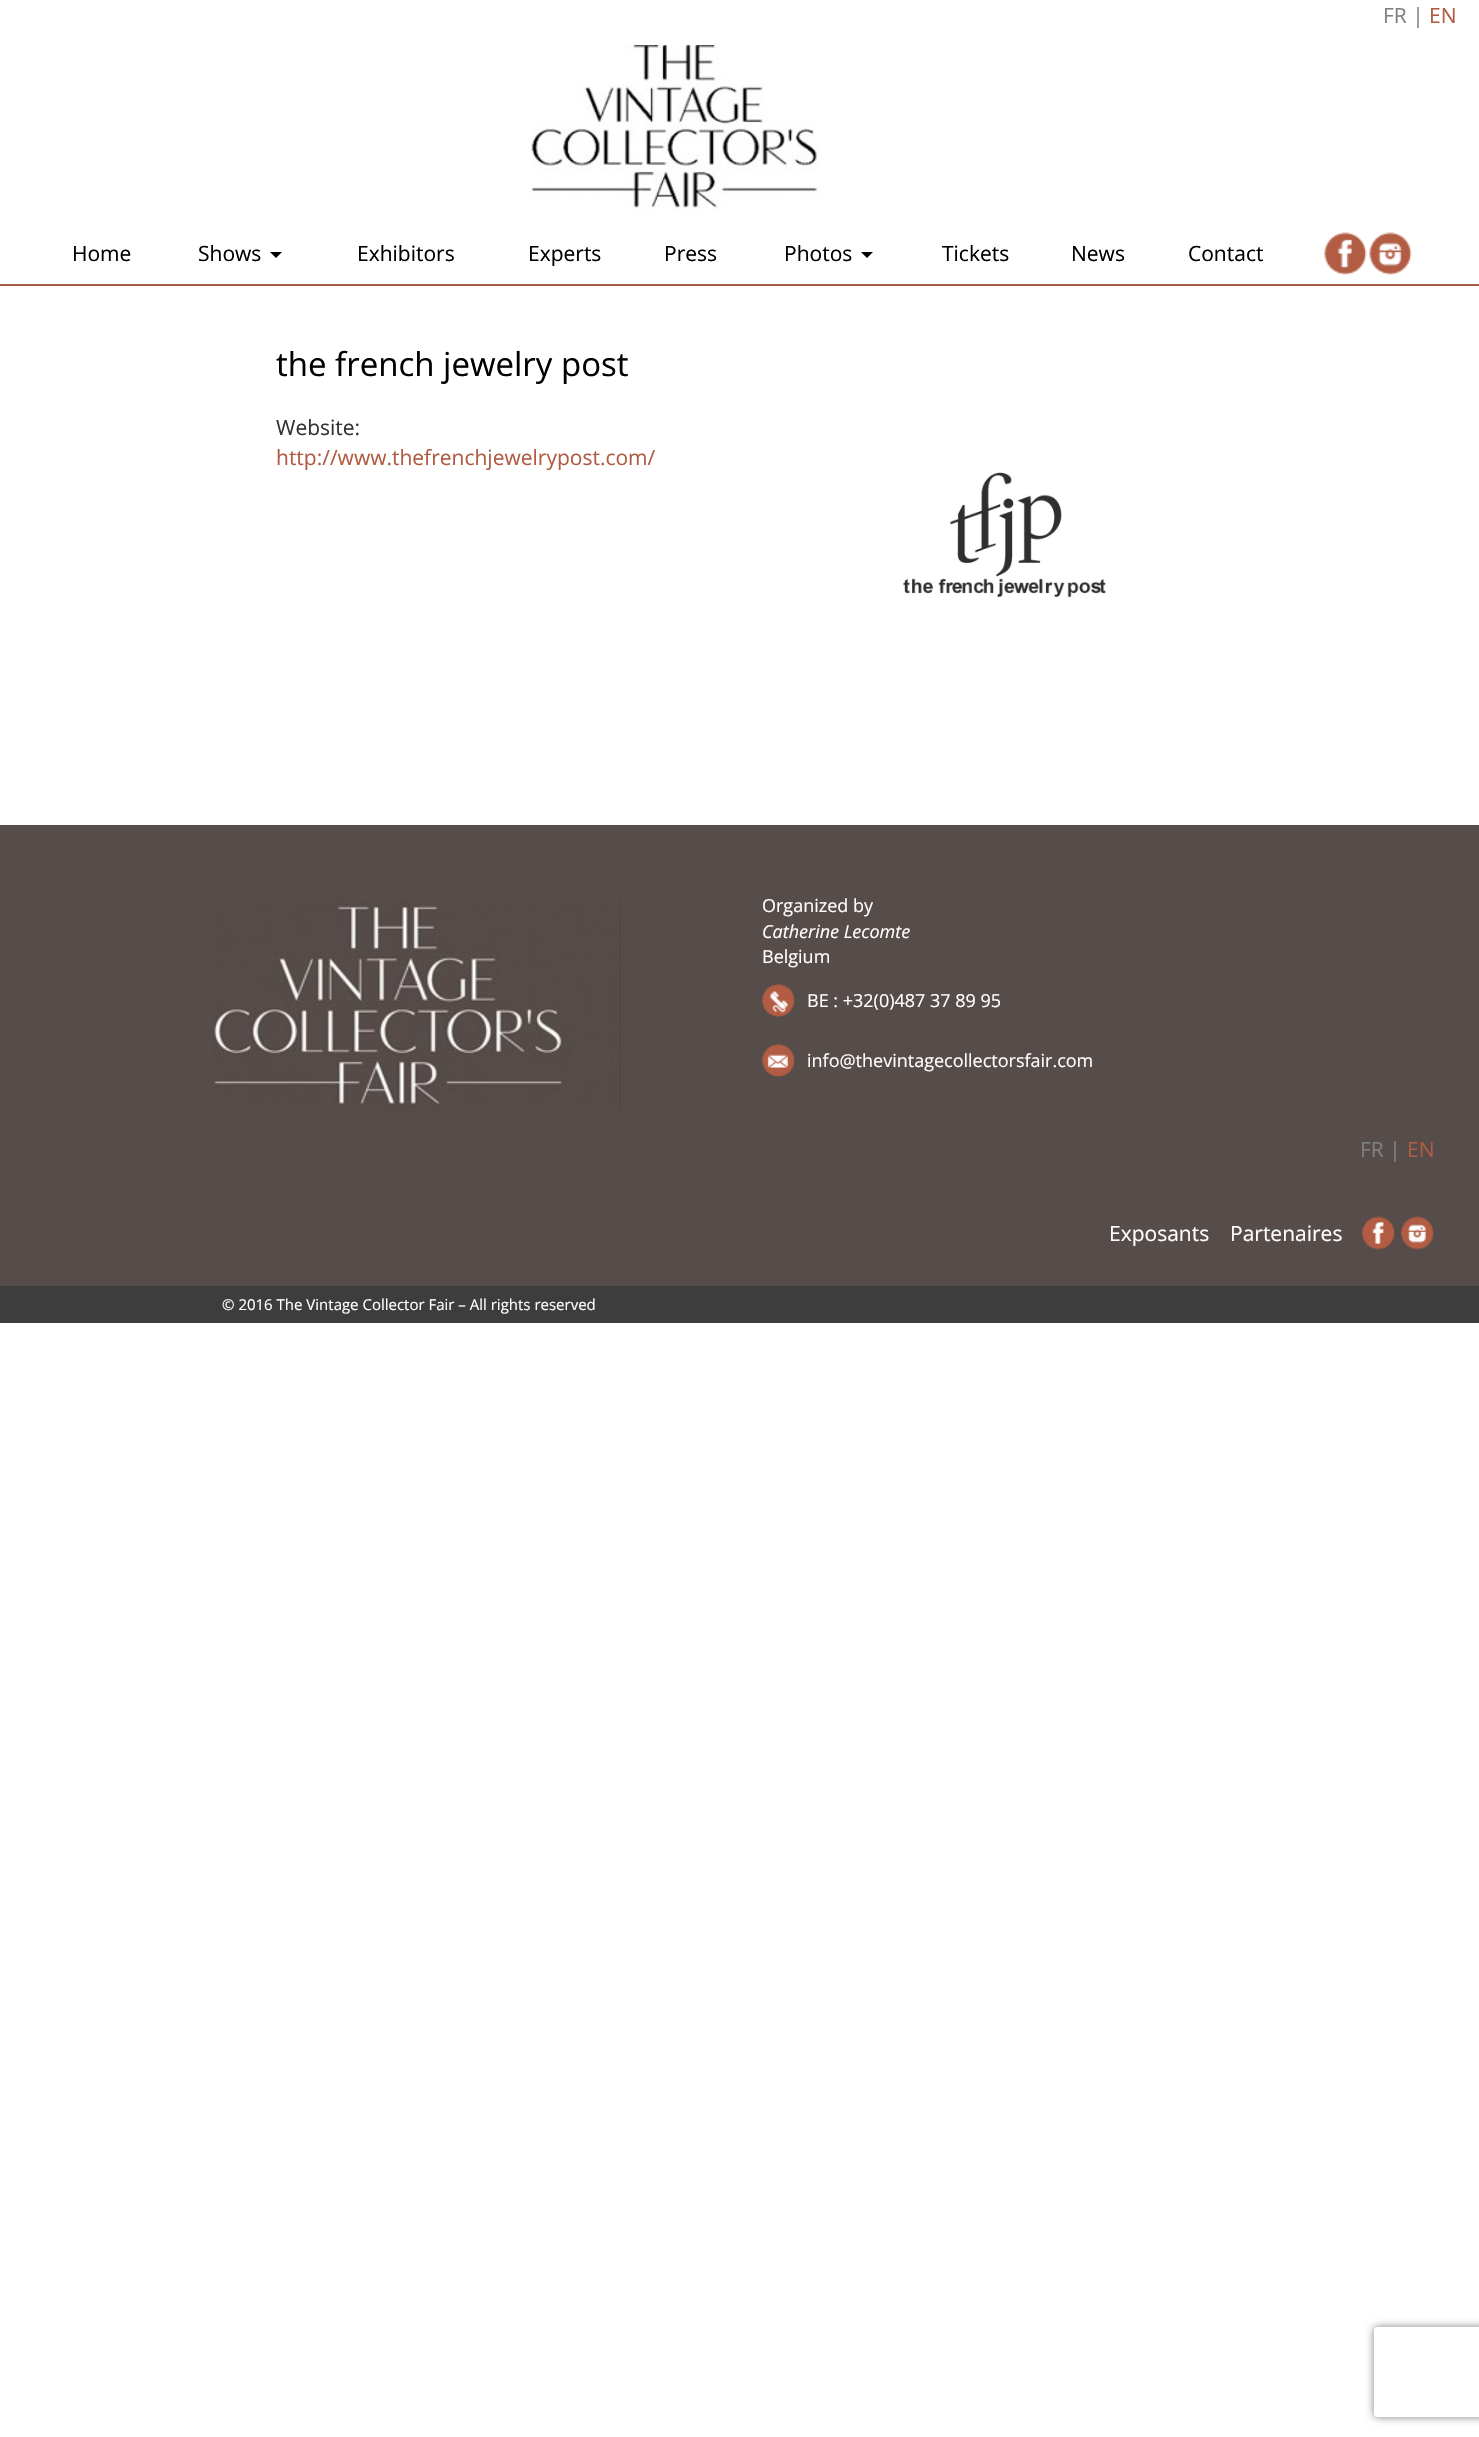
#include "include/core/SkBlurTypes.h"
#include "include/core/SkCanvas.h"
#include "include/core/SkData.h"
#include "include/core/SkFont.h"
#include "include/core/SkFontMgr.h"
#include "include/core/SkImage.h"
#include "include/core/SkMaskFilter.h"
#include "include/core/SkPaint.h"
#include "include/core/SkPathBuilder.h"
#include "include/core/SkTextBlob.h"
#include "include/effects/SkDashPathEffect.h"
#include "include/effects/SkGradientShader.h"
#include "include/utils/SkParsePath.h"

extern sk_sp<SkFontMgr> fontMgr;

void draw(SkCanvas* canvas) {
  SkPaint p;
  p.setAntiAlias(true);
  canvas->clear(SK_ColorWHITE);
  p.setColor(SkColorSetRGB(164, 91, 63));
  canvas->drawRect(SkRect::MakeLTRB(0, 284, 1479, 286), p);
  canvas->drawImageRect(SkImages::DeferredFromEncodedData(SkData::MakeFromFileName("images/1.png")), SkRect::MakeLTRB(531, 45, 820, 210), SkSamplingOptions());
  p.setColor(SK_ColorBLACK);
  canvas->drawPath(SkPathBuilder().moveTo(270, 252).lineTo(282, 252).lineTo(276, 258).close().detach(), p);
  canvas->drawPath(SkPathBuilder().moveTo(861, 252).lineTo(873, 252).lineTo(867, 258).close().detach(), p);
  canvas->drawImageRect(SkImages::DeferredFromEncodedData(SkData::MakeFromFileName("images/2.png")), SkRect::MakeLTRB(1324, 232, 1367, 275), SkSamplingOptions());
  canvas->drawImageRect(SkImages::DeferredFromEncodedData(SkData::MakeFromFileName("images/3.png")), SkRect::MakeLTRB(1369, 232, 1412, 275), SkSamplingOptions());
  canvas->drawImageRect(SkImages::DeferredFromEncodedData(SkData::MakeFromFileName("images/4.png")), SkRect::MakeLTRB(903, 472, 1106, 598), SkSamplingOptions());
  p.setColor(SkColorSetRGB(86, 76, 73));
  canvas->drawRect(SkRect::MakeLTRB(0, 825, 1479, 1286), p);
  canvas->drawImageRect(SkImages::DeferredFromEncodedData(SkData::MakeFromFileName("images/5.png")), SkRect::MakeLTRB(213, 900, 621, 1110), SkSamplingOptions());
  canvas->drawImageRect(SkImages::DeferredFromEncodedData(SkData::MakeFromFileName("images/6.png")), SkRect::MakeLTRB(762, 984, 795, 1017), SkSamplingOptions());
  canvas->drawImageRect(SkImages::DeferredFromEncodedData(SkData::MakeFromFileName("images/7.png")), SkRect::MakeLTRB(762, 1044, 795, 1077), SkSamplingOptions());
  canvas->drawImageRect(SkImages::DeferredFromEncodedData(SkData::MakeFromFileName("images/8.png")), SkRect::MakeLTRB(1362, 1216, 1395, 1250), SkSamplingOptions());
  canvas->drawImageRect(SkImages::DeferredFromEncodedData(SkData::MakeFromFileName("images/9.png")), SkRect::MakeLTRB(1401, 1216, 1434, 1250), SkSamplingOptions());
  p.setColor(SkColorSetRGB(61, 61, 61));
  canvas->drawRect(SkRect::MakeLTRB(0, 1286, 1479, 1323), p);
  canvas->save();
  canvas->clipPath(SkPathBuilder(SkPathFillType::kEvenOdd).moveTo(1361, 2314).lineTo(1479, 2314).lineTo(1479, 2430).lineTo(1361, 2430).close().moveTo(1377, 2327).lineTo(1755, 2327).cubicTo(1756.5f, 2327, 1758, 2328.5f, 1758, 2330).lineTo(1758, 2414).cubicTo(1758, 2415.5f, 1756.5f, 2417, 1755, 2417).lineTo(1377, 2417).cubicTo(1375.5f, 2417, 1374, 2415.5f, 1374, 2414).lineTo(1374, 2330).cubicTo(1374, 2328.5f, 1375.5f, 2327, 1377, 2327).close().detach(), true);
  p.setColor(SkColorSetRGB(128, 128, 128));
  p.setMaskFilter(SkMaskFilter::MakeBlur(kNormal_SkBlurStyle, 4));
  canvas->drawRoundRect(SkRect::MakeLTRB(1374, 2327, 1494, 2417), 3, 3, p);
  p.setMaskFilter(nullptr);
  canvas->restore();
  SkFont font1(fontMgr->matchFamilyStyle("Open Sans", SkFontStyle::Normal()), 21);
  font1.setSubpixel(true);
  p.setColor(SkColorSetRGB(128, 129, 132));
  canvas->drawString("FR |", 1383, 23, font1, p);
  p.setColor(SkColorSetRGB(176, 91, 66));
  canvas->drawString("EN", 1429, 23, font1, p);
  p.setColor(SK_ColorBLACK);
  canvas->drawString("Home", 72, 261, font1, p);
  canvas->drawString("Shows", 198, 261, font1, p);
  canvas->drawString("Exhibitors", 357, 261, font1, p);
  canvas->drawString("Experts", 528, 261, font1, p);
  canvas->drawString("Press", 664, 261, font1, p);
  canvas->drawString("Photos", 784, 261, font1, p);
  canvas->drawString("Tickets", 942, 261, font1, p);
  canvas->drawString("News", 1071, 261, font1, p);
  canvas->drawString("Contact", 1188, 261, font1, p);
  SkFont font2(fontMgr->matchFamilyStyle("Open Sans", SkFontStyle::Normal()), 33);
  font2.setSubpixel(true);
  canvas->drawString("the french jewelry post", 276, 376, font2, p);
  p.setColor(SkColorSetRGB(51, 51, 51));
  canvas->drawString("Website:", 276, 435, font1, p);
  p.setColor(SkColorSetRGB(176, 91, 66));
  canvas->drawString("http://www.thefrenchjewelrypost.com/", 276, 465, font1, p);
  SkFont font3(fontMgr->matchFamilyStyle("Open Sans", SkFontStyle::Normal()), 18);
  font3.setSubpixel(true);
  p.setColor(SK_ColorWHITE);
  canvas->drawString("Organized by", 762, 912, font3, p);
  SkFont font4(fontMgr->matchFamilyStyle("Open Sans", SkFontStyle::Italic()), 18);
  font4.setSubpixel(true);
  canvas->drawString("Catherine Lecomte", 762, 938, font4, p);
  canvas->drawString("Belgium", 762, 963, font3, p);
  canvas->drawString("BE : +32(0)487 37 89 95", 807, 1007, font3, p);
  canvas->drawString("info@thevintagecollectorsfair.com", 807, 1067, font3, p);
  p.setColor(SkColorSetRGB(128, 129, 132));
  canvas->drawString("FR |", 1360, 1157, font1, p);
  p.setColor(SkColorSetRGB(176, 91, 66));
  canvas->drawString("EN", 1407, 1157, font1, p);
  p.setColor(SK_ColorWHITE);
  canvas->drawString("Exposants", 1109, 1241, font1, p);
  canvas->drawString("Partenaires", 1230, 1241, font1, p);
  SkFont font5(fontMgr->matchFamilyStyle("Open Sans", SkFontStyle::Normal()), 15);
  font5.setSubpixel(true);
  canvas->drawString("© 2016 The Vintage Collector Fair – All rights reserved", 222, 1310, font5, p);
}
